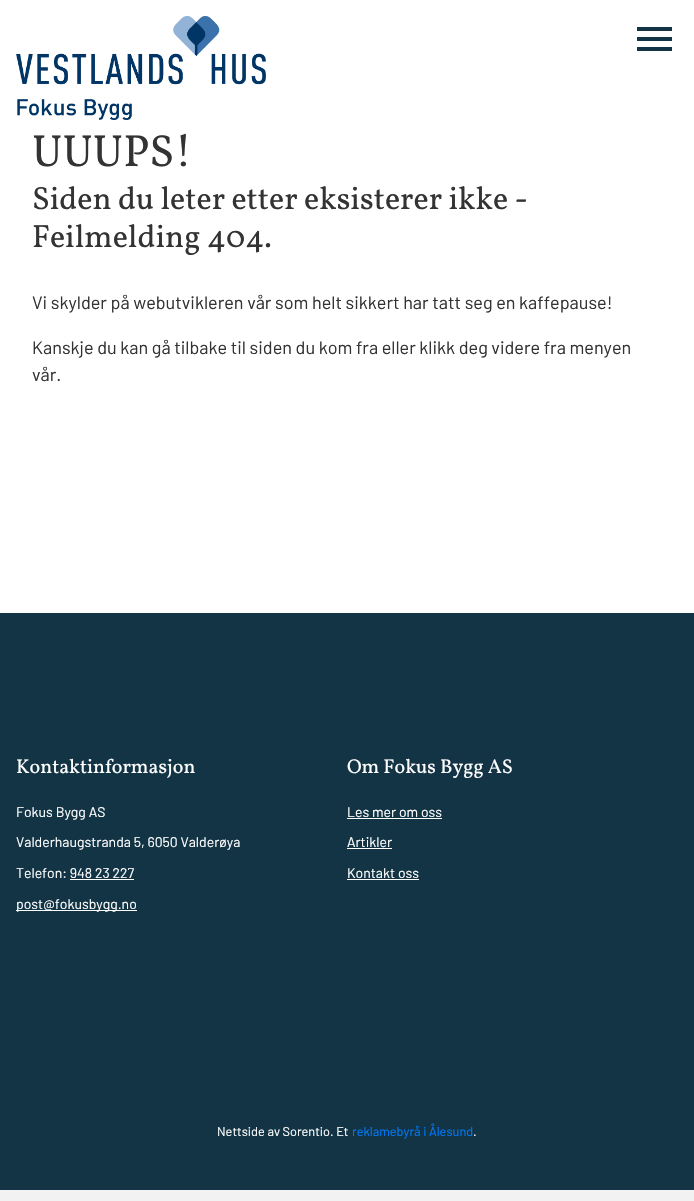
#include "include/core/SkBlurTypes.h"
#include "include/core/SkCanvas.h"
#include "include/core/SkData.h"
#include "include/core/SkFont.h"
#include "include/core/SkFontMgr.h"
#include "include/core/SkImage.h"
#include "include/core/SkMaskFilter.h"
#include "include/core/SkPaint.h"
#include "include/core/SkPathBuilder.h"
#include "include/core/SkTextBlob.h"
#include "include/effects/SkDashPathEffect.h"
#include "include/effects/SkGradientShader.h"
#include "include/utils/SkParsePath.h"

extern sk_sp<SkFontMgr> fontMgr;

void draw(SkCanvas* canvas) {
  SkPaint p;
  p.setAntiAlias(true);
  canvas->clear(SkColorSetRGB(242, 242, 242));
  p.setColor(SK_ColorWHITE);
  canvas->drawRect(SkRect::MakeLTRB(0, 0, 694, 613), p);
  canvas->drawImageRect(SkImages::DeferredFromEncodedData(SkData::MakeFromFileName("images/1.png")), SkRect::MakeLTRB(16, 16, 266, 120), SkSamplingOptions());
  p.setColor(SkColorSetRGB(19, 52, 69));
  canvas->drawRect(SkRect::MakeLTRB(637, 27, 672, 31), p);
  canvas->drawRect(SkRect::MakeLTRB(637, 37, 672, 41), p);
  canvas->drawRect(SkRect::MakeLTRB(637, 47, 672, 51), p);
  canvas->drawRect(SkRect::MakeLTRB(0, 613, 694, 1190), p);
  p.setColor(SK_ColorWHITE);
  canvas->drawRect(SkRect::MakeLTRB(70, 879, 134, 880), p);
  canvas->drawRect(SkRect::MakeLTRB(16, 910, 137, 911), p);
  canvas->drawRect(SkRect::MakeLTRB(347, 818, 442, 819), p);
  canvas->drawRect(SkRect::MakeLTRB(347, 848, 392, 849), p);
  canvas->drawRect(SkRect::MakeLTRB(347, 879, 419, 880), p);
  SkFont font1(fontMgr->matchFamilyStyle("Vollkorn", SkFontStyle::Normal()), 45);
  font1.setSubpixel(true);
  p.setColor(SkColorSetRGB(51, 51, 51));
  canvas->drawString("UUUPS!", 32, 166, font1, p);
  SkFont font2(fontMgr->matchFamilyStyle("Vollkorn", SkFontStyle::Normal()), 32);
  font2.setSubpixel(true);
  canvas->drawString("Siden du leter etter eksisterer ikke -", 32, 209, font2, p);
  canvas->drawString("Feilmelding 404.", 32, 247, font2, p);
  SkFont font3(fontMgr->matchFamilyStyle("Barlow", SkFontStyle::Normal()), 18);
  font3.setSubpixel(true);
  canvas->drawString("Vi skylder på webutvikleren vår som helt sikkert har tatt seg en kaffepause!", 32, 309, font3, p);
  canvas->drawString("Kanskje du kan gå tilbake til siden du kom fra eller klikk deg videre fra menyen", 32, 354, font3, p);
  canvas->drawString("vår.", 32, 381, font3, p);
  SkFont font4(fontMgr->matchFamilyStyle("Vollkorn", SkFontStyle::Normal()), 20);
  font4.setSubpixel(true);
  p.setColor(SK_ColorWHITE);
  canvas->drawString("Kontaktinformasjon", 16, 773, font4, p);
  SkFont font5(fontMgr->matchFamilyStyle("Barlow", SkFontStyle::Normal()), 14);
  font5.setSubpixel(true);
  canvas->drawString("Fokus Bygg AS", 16, 817, font5, p);
  canvas->drawString("Valderhaugstranda 5, 6050 Valderøya", 16, 847, font5, p);
  canvas->drawString("Telefon: 948 23 227", 16, 878, font5, p);
  canvas->drawString("post@fokusbygg.no", 16, 909, font5, p);
  canvas->drawString("Om Fokus Bygg AS", 347, 773, font4, p);
  canvas->drawString("Les mer om oss", 347, 817, font5, p);
  canvas->drawString("Artikler", 347, 847, font5, p);
  canvas->drawString("Kontakt oss", 347, 878, font5, p);
  SkFont font6(fontMgr->matchFamilyStyle("Barlow", SkFontStyle::Normal()), 12.75f);
  font6.setSubpixel(true);
  canvas->drawString("Nettside av Sorentio. Et", 217, 1136, font6, p);
  p.setColor(SkColorSetRGB(0, 123, 255));
  canvas->drawString("reklamebyrå i Ålesund", 352, 1136, font6, p);
  p.setColor(SK_ColorWHITE);
  canvas->drawString(".", 473, 1136, font6, p);
}
